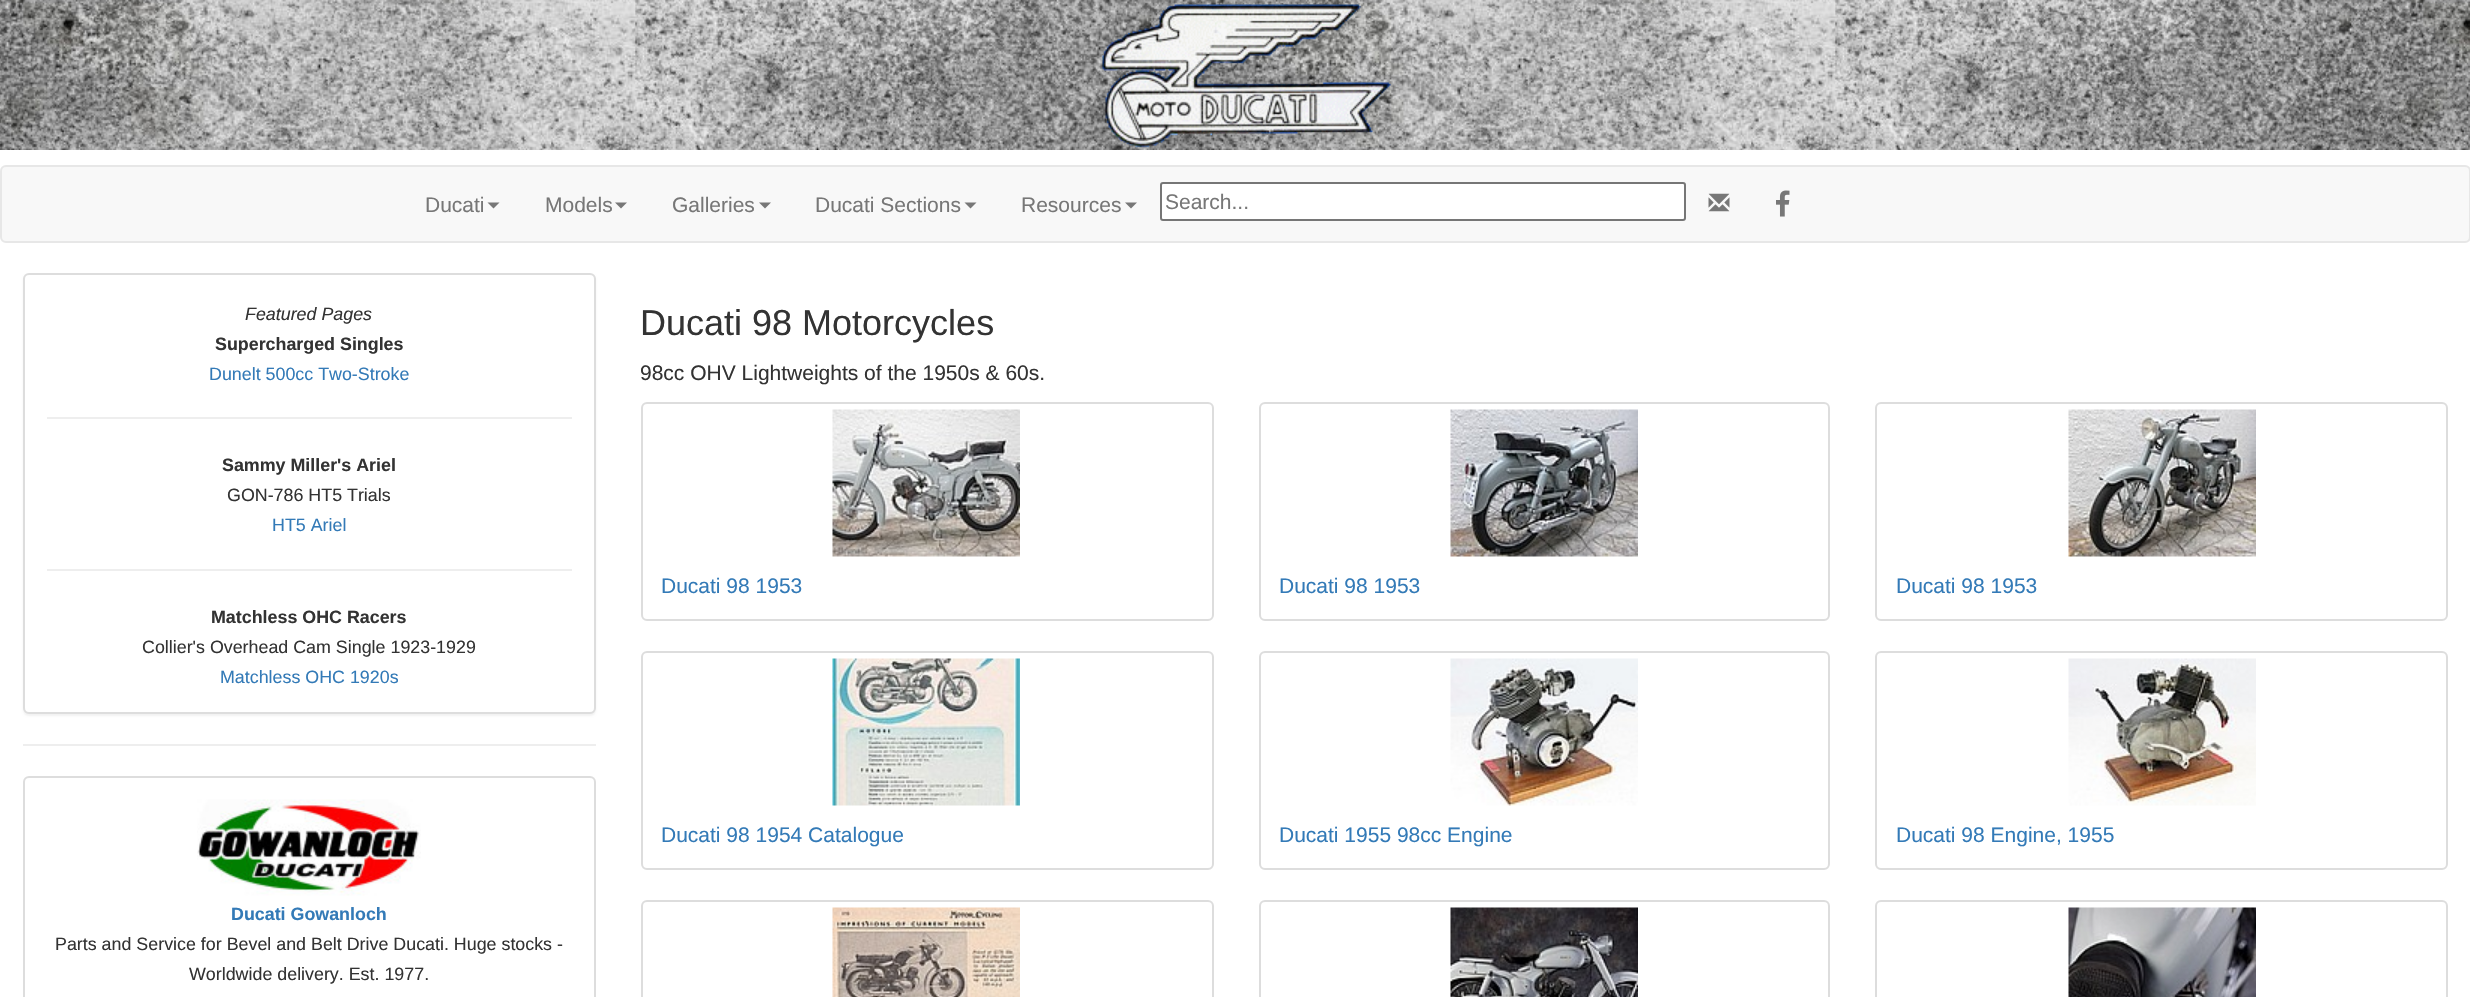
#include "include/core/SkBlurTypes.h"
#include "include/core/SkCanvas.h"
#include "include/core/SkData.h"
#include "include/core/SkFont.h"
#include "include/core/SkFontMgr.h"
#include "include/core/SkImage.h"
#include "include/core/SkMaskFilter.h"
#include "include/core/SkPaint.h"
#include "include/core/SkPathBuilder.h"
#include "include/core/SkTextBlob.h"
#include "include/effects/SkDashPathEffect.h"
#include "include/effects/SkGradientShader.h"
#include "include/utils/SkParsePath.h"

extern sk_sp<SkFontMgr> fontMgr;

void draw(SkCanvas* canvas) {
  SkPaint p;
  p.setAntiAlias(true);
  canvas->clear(SK_ColorWHITE);
  canvas->drawImageRect(SkImages::DeferredFromEncodedData(SkData::MakeFromFileName("images/1.png")), SkRect::MakeLTRB(0, 0, 2470, 150), SkSamplingOptions());
  canvas->drawImageRect(SkImages::DeferredFromEncodedData(SkData::MakeFromFileName("images/2.png")), SkRect::MakeLTRB(1102, 4, 1391, 148), SkSamplingOptions());
  p.setColor(SkColorSetRGB(248, 248, 248));
  canvas->drawRoundRect(SkRect::MakeLTRB(1, 166, 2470, 242), 5, 5, p);
  p.setStyle(SkPaint::kStroke_Style);
  p.setStrokeWidth(2);
  p.setColor(SkColorSetRGB(231, 231, 231));
  canvas->drawRoundRect(SkRect::MakeLTRB(1, 166, 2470, 242), 5, 5, p);
  p.setStyle(SkPaint::kFill_Style);
  p.setColor(SkColorSetRGB(119, 119, 119));
  canvas->drawPath(SkPathBuilder().moveTo(487.5f, 202.5f).lineTo(499.5f, 202.5f).lineTo(493.5f, 208.5f).close().detach(), p);
  canvas->drawPath(SkPathBuilder().moveTo(615, 202.5f).lineTo(627, 202.5f).lineTo(621, 208.5f).close().detach(), p);
  canvas->drawPath(SkPathBuilder().moveTo(759, 202.5f).lineTo(771, 202.5f).lineTo(765, 208.5f).close().detach(), p);
  canvas->drawPath(SkPathBuilder().moveTo(964.5f, 202.5f).lineTo(976.5f, 202.5f).lineTo(970.5f, 208.5f).close().detach(), p);
  canvas->drawPath(SkPathBuilder().moveTo(1125, 202.5f).lineTo(1137, 202.5f).lineTo(1131, 208.5f).close().detach(), p);
  p.setColor(SK_ColorWHITE);
  canvas->drawRoundRect(SkRect::MakeLTRB(1161, 183, 1685, 220), 2, 2, p);
  p.setStyle(SkPaint::kStroke_Style);
  p.setColor(SkColorSetRGB(118, 118, 118));
  canvas->drawRoundRect(SkRect::MakeLTRB(1161, 183, 1685, 220), 2, 2, p);
  canvas->drawImageRect(SkImages::DeferredFromEncodedData(SkData::MakeFromFileName("images/3.png")), SkRect::MakeLTRB(1708, 193, 1730, 212), SkSamplingOptions());
  canvas->drawImageRect(SkImages::DeferredFromEncodedData(SkData::MakeFromFileName("images/4.png")), SkRect::MakeLTRB(1776, 190, 1790, 217), SkSamplingOptions());
  p.setStyle(SkPaint::kFill_Style);
  p.setColor(SkColorSetARGB(13, 0, 0, 0));
  p.setMaskFilter(SkMaskFilter::MakeBlur(kNormal_SkBlurStyle, 1));
  canvas->drawRoundRect(SkRect::MakeLTRB(23, 275, 596, 716), 6, 6, p);
  p.setMaskFilter(nullptr);
  p.setColor(SK_ColorWHITE);
  canvas->drawRoundRect(SkRect::MakeLTRB(24, 274, 595, 713), 5, 5, p);
  p.setStyle(SkPaint::kStroke_Style);
  p.setColor(SkColorSetRGB(221, 221, 221));
  canvas->drawRoundRect(SkRect::MakeLTRB(24, 274, 595, 713), 5, 5, p);
  p.setStyle(SkPaint::kFill_Style);
  p.setColor(SkColorSetRGB(238, 238, 238));
  canvas->drawRect(SkRect::MakeLTRB(47, 417, 572, 419), p);
  canvas->drawRect(SkRect::MakeLTRB(47, 569, 572, 571), p);
  canvas->drawRect(SkRect::MakeLTRB(23, 744, 596, 746), p);
  p.setStyle(SkPaint::kStroke_Style);
  p.setColor(SkColorSetRGB(221, 221, 221));
  canvas->drawRoundRect(SkRect::MakeLTRB(24, 777, 595, 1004), 5, 5, p);
  canvas->drawImageRect(SkImages::DeferredFromEncodedData(SkData::MakeFromFileName("images/5.png")), SkRect::MakeLTRB(197, 799, 421, 896), SkSamplingOptions());
  canvas->drawRoundRect(SkRect::MakeLTRB(642, 403, 1213, 620), 5, 5, p);
  canvas->drawImageRect(SkImages::DeferredFromEncodedData(SkData::MakeFromFileName("images/6.png")), SkRect::MakeLTRB(832, 409, 1020, 557), SkSamplingOptions());
  canvas->drawRoundRect(SkRect::MakeLTRB(1260, 403, 1829, 620), 5, 5, p);
  canvas->drawImageRect(SkImages::DeferredFromEncodedData(SkData::MakeFromFileName("images/7.png")), SkRect::MakeLTRB(1450, 409, 1638, 557), SkSamplingOptions());
  canvas->drawRoundRect(SkRect::MakeLTRB(1876, 403, 2447, 620), 5, 5, p);
  canvas->drawImageRect(SkImages::DeferredFromEncodedData(SkData::MakeFromFileName("images/8.png")), SkRect::MakeLTRB(2068, 409, 2256, 557), SkSamplingOptions());
  canvas->drawRoundRect(SkRect::MakeLTRB(642, 652, 1213, 869), 5, 5, p);
  canvas->drawImageRect(SkImages::DeferredFromEncodedData(SkData::MakeFromFileName("images/9.png")), SkRect::MakeLTRB(832, 658, 1020, 806), SkSamplingOptions());
  canvas->drawRoundRect(SkRect::MakeLTRB(1260, 652, 1829, 869), 5, 5, p);
  canvas->drawImageRect(SkImages::DeferredFromEncodedData(SkData::MakeFromFileName("images/10.png")), SkRect::MakeLTRB(1450, 658, 1638, 806), SkSamplingOptions());
  canvas->drawRoundRect(SkRect::MakeLTRB(1876, 652, 2447, 869), 5, 5, p);
  canvas->drawImageRect(SkImages::DeferredFromEncodedData(SkData::MakeFromFileName("images/11.png")), SkRect::MakeLTRB(2068, 658, 2256, 806), SkSamplingOptions());
  canvas->drawRoundRect(SkRect::MakeLTRB(642, 901, 1213, 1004), 5, 5, p);
  canvas->drawImageRect(SkImages::DeferredFromEncodedData(SkData::MakeFromFileName("images/12.png")), SkRect::MakeLTRB(832, 907, 1020, 997), SkSamplingOptions());
  canvas->drawRoundRect(SkRect::MakeLTRB(1260, 901, 1829, 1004), 5, 5, p);
  canvas->drawImageRect(SkImages::DeferredFromEncodedData(SkData::MakeFromFileName("images/13.png")), SkRect::MakeLTRB(1450, 907, 1638, 997), SkSamplingOptions());
  canvas->drawRoundRect(SkRect::MakeLTRB(1876, 901, 2447, 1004), 5, 5, p);
  canvas->drawImageRect(SkImages::DeferredFromEncodedData(SkData::MakeFromFileName("images/14.png")), SkRect::MakeLTRB(2068, 907, 2256, 997), SkSamplingOptions());
  SkFont font1(fontMgr->matchFamilyStyle("Liberation Sans", SkFontStyle::Normal()), 21);
  font1.setSubpixel(true);
  p.setStyle(SkPaint::kFill_Style);
  p.setColor(SkColorSetRGB(119, 119, 119));
  canvas->drawString("Ducati", 425, 212, font1, p);
  canvas->drawString("Models", 545, 212, font1, p);
  canvas->drawString("Galleries", 672, 212, font1, p);
  canvas->drawString("Ducati Sections", 815, 212, font1, p);
  canvas->drawString("Resources", 1021, 212, font1, p);
  canvas->drawString("Search...", 1165, 209, font1, p);
  SkFont font2(fontMgr->matchFamilyStyle("Liberation Sans", SkFontStyle::Italic()), 17.85f);
  font2.setSubpixel(true);
  p.setColor(SkColorSetRGB(51, 51, 51));
  canvas->drawString("Featured Pages", 245, 320, font2, p);
  SkFont font3(fontMgr->matchFamilyStyle("Liberation Sans", SkFontStyle::Bold()), 17.85f);
  font3.setSubpixel(true);
  canvas->drawString("Supercharged Singles", 215, 350, font3, p);
  SkFont font4(fontMgr->matchFamilyStyle("Liberation Sans", SkFontStyle::Normal()), 17.85f);
  font4.setSubpixel(true);
  p.setColor(SkColorSetRGB(51, 122, 183));
  canvas->drawString("Dunelt 500cc Two-Stroke", 209, 380, font4, p);
  p.setColor(SkColorSetRGB(51, 51, 51));
  canvas->drawString("Sammy Miller's Ariel", 222, 471, font3, p);
  canvas->drawString("GON-786 HT5 Trials", 227, 501, font4, p);
  p.setColor(SkColorSetRGB(51, 122, 183));
  canvas->drawString("HT5 Ariel", 272, 531, font4, p);
  p.setColor(SkColorSetRGB(51, 51, 51));
  canvas->drawString("Matchless OHC Racers", 211, 623, font3, p);
  canvas->drawString("Collier's Overhead Cam Single 1923-1929", 142, 653, font4, p);
  p.setColor(SkColorSetRGB(51, 122, 183));
  canvas->drawString("Matchless OHC 1920s", 220, 683, font4, p);
  canvas->drawString("Ducati Gowanloch", 231, 920, font3, p);
  p.setColor(SkColorSetRGB(51, 51, 51));
  canvas->drawString("Parts and Service for Bevel and Belt Drive Ducati. Huge stocks -", 55, 950, font4, p);
  canvas->drawString("Worldwide delivery. Est. 1977.", 189, 980, font4, p);
  SkFont font5(fontMgr->matchFamilyStyle("Liberation Sans", SkFontStyle::Normal()), 36);
  font5.setSubpixel(true);
  canvas->drawString("Ducati 98 Motorcycles", 640, 335, font5, p);
  canvas->drawString("98cc OHV Lightweights of the 1950s & 60s.", 640, 380, font1, p);
  p.setColor(SkColorSetRGB(51, 122, 183));
  canvas->drawString("Ducati 98 1953", 661, 593, font1, p);
  canvas->drawString("Ducati 98 1953", 1279, 593, font1, p);
  canvas->drawString("Ducati 98 1953", 1896, 593, font1, p);
  canvas->drawString("Ducati 98 1954 Catalogue", 661, 842, font1, p);
  canvas->drawString("Ducati 1955 98cc Engine", 1279, 842, font1, p);
  canvas->drawString("Ducati 98 Engine, 1955", 1896, 842, font1, p);
}
